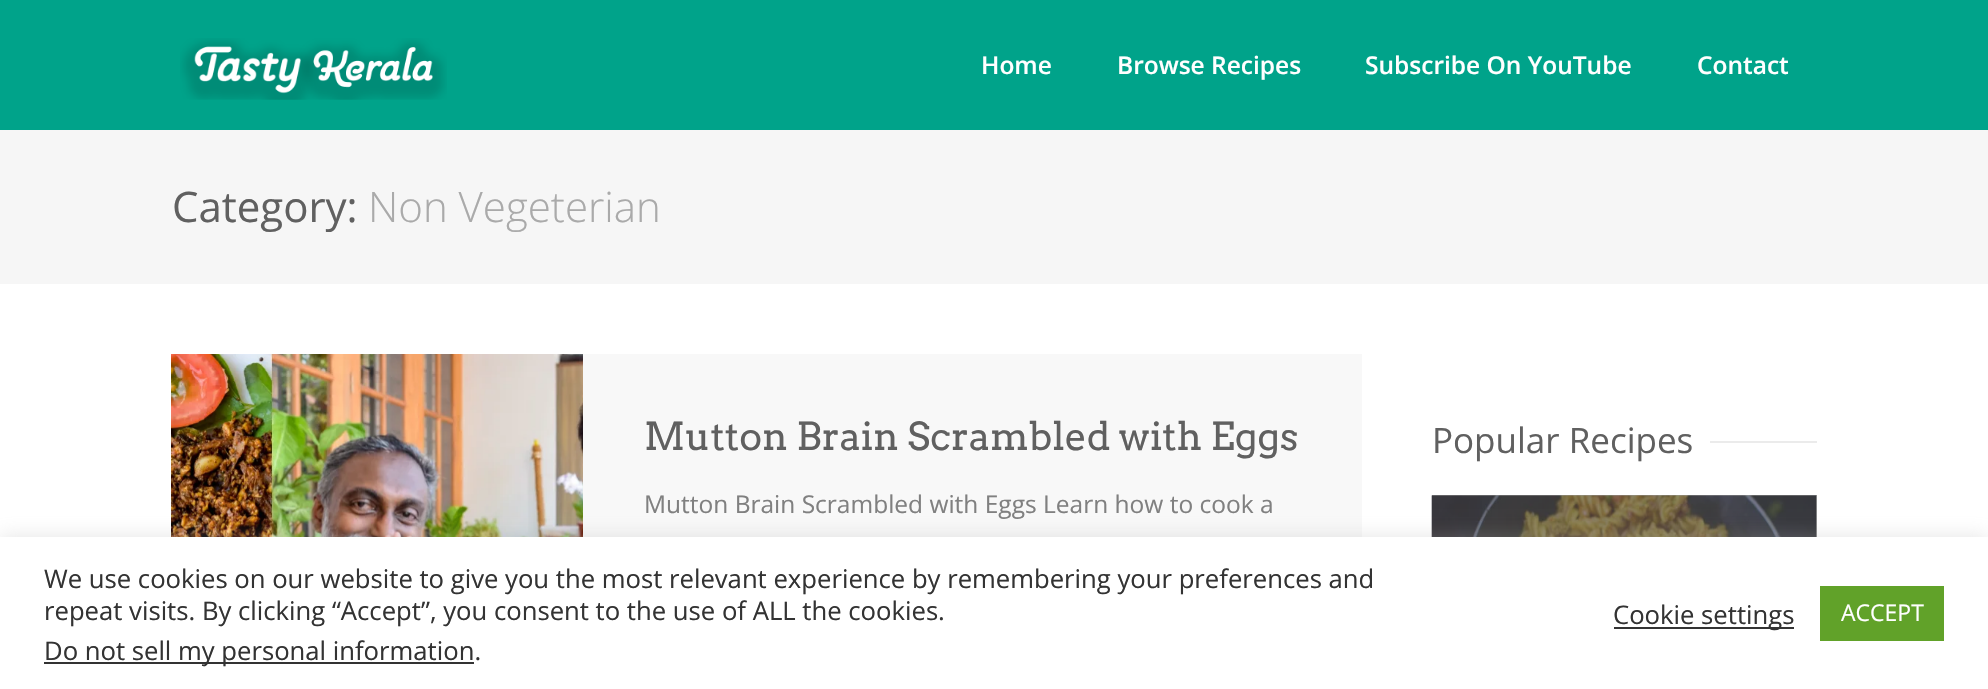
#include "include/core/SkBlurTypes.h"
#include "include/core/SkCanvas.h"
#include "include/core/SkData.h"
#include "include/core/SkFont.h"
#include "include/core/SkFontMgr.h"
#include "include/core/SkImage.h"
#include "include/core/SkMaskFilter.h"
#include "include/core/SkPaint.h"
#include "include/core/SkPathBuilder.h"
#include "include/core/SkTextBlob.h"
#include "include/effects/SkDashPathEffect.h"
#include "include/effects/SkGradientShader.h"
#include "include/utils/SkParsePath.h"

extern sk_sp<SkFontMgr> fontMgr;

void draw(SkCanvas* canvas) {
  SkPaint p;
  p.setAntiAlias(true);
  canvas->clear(SK_ColorWHITE);
  p.setColor(SkColorSetRGB(153, 153, 153));
  canvas->drawRect(SkRect::MakeLTRB(1432, 495, 1817, 537), p);
  p.setColor(SkColorSetRGB(0, 163, 138));
  canvas->drawRect(SkRect::MakeLTRB(0, 0, 1988, 130), p);
  canvas->drawImageRect(SkImages::DeferredFromEncodedData(SkData::MakeFromFileName("images/1.png")), SkRect::MakeLTRB(180, 38, 447, 100), SkSamplingOptions());
  p.setColor(SkColorSetRGB(246, 246, 246));
  canvas->drawRect(SkRect::MakeLTRB(0, 130, 1988, 284), p);
  canvas->drawImageRect(SkImages::DeferredFromEncodedData(SkData::MakeFromFileName("images/2.png")), SkRect::MakeLTRB(171, 354, 583, 537), SkSamplingOptions());
  p.setColor(SkColorSetRGB(248, 248, 248));
  canvas->drawRect(SkRect::MakeLTRB(583, 354, 1362, 537), p);
  p.setColor(SkColorSetRGB(235, 235, 235));
  canvas->drawRect(SkRect::MakeLTRB(1710, 441, 1817, 443), p);
  canvas->drawImageRect(SkImages::DeferredFromEncodedData(SkData::MakeFromFileName("images/3.png")), SkRect::MakeLTRB(1431, 495, 1817, 537), SkSamplingOptions());
  p.setColor(SkColorSetARGB(77, 172, 171, 171));
  p.setMaskFilter(SkMaskFilter::MakeBlur(kNormal_SkBlurStyle, 9));
  canvas->drawRect(SkRect::MakeLTRB(0, 536, 1988, 688), p);
  p.setMaskFilter(nullptr);
  p.setColor(SK_ColorWHITE);
  canvas->drawRect(SkRect::MakeLTRB(0, 537, 1988, 689), p);
  p.setColor(SkColorSetRGB(51, 51, 51));
  canvas->drawRect(SkRect::MakeLTRB(44, 662, 474, 664), p);
  canvas->drawRect(SkRect::MakeLTRB(1614, 627, 1794, 629), p);
  p.setColor(SkColorSetRGB(97, 162, 41));
  canvas->drawRect(SkRect::MakeLTRB(1820, 586, 1944, 641), p);
  SkFont font1(fontMgr->matchFamilyStyle("Open Sans", SkFontStyle(600, SkFontStyle::kNormal_Width, SkFontStyle::kUpright_Slant)), 24.5f);
  font1.setSubpixel(true);
  p.setColor(SK_ColorWHITE);
  canvas->drawString("Home", 981, 74, font1, p);
  canvas->drawString("Browse Recipes", 1117, 74, font1, p);
  canvas->drawString("Subscribe On YouTube", 1365, 74, font1, p);
  canvas->drawString("Contact", 1697, 74, font1, p);
  SkFont font2(fontMgr->matchFamilyStyle("Open Sans", SkFontStyle::Normal()), 42);
  font2.setSubpixel(true);
  p.setColor(SkColorSetRGB(96, 96, 96));
  canvas->drawString("Category:", 172, 222, font2, p);
  SkFont font3(fontMgr->matchFamilyStyle("Open Sans", SkFontStyle(300, SkFontStyle::kNormal_Width, SkFontStyle::kUpright_Slant)), 42);
  font3.setSubpixel(true);
  p.setColor(SkColorSetRGB(170, 170, 170));
  canvas->drawString("Non Vegeterian", 368, 222, font3, p);
  SkFont font4(fontMgr->matchFamilyStyle("Arvo", SkFontStyle::Normal()), 38.5f);
  font4.setSubpixel(true);
  p.setColor(SkColorSetRGB(96, 96, 96));
  canvas->drawString("Mutton Brain Scrambled with Eggs", 644, 450, font4, p);
  SkFont font5(fontMgr->matchFamilyStyle("Open Sans", SkFontStyle::Normal()), 24.5f);
  font5.setSubpixel(true);
  p.setColor(SkColorSetRGB(128, 128, 128));
  canvas->drawString("Mutton Brain Scrambled with Eggs Learn how to cook a", 644, 513, font5, p);
  SkFont font6(fontMgr->matchFamilyStyle("Open Sans", SkFontStyle::Normal()), 35);
  font6.setSubpixel(true);
  p.setColor(SkColorSetRGB(96, 96, 96));
  canvas->drawString("Popular Recipes", 1432, 453, font6, p);
  SkFont font7(fontMgr->matchFamilyStyle("Open Sans", SkFontStyle::Normal()), 25.67f);
  font7.setSubpixel(true);
  p.setColor(SkColorSetRGB(51, 51, 51));
  canvas->drawString("We use cookies on our website to give you the most relevant experience by remembering your preferences and", 44, 588, font7, p);
  canvas->drawString("repeat visits. By clicking “Accept”, you consent to the use of ALL the cookies.", 44, 620, font7, p);
  canvas->drawString("Do not sell my personal information.", 44, 660, font7, p);
  canvas->drawString("Cookie settings", 1613, 624, font7, p);
  SkFont font8(fontMgr->matchFamilyStyle("Open Sans", SkFontStyle::Normal()), 23);
  font8.setSubpixel(true);
  p.setColor(SK_ColorWHITE);
  canvas->drawString("ACCEPT", 1841, 621, font8, p);
}
